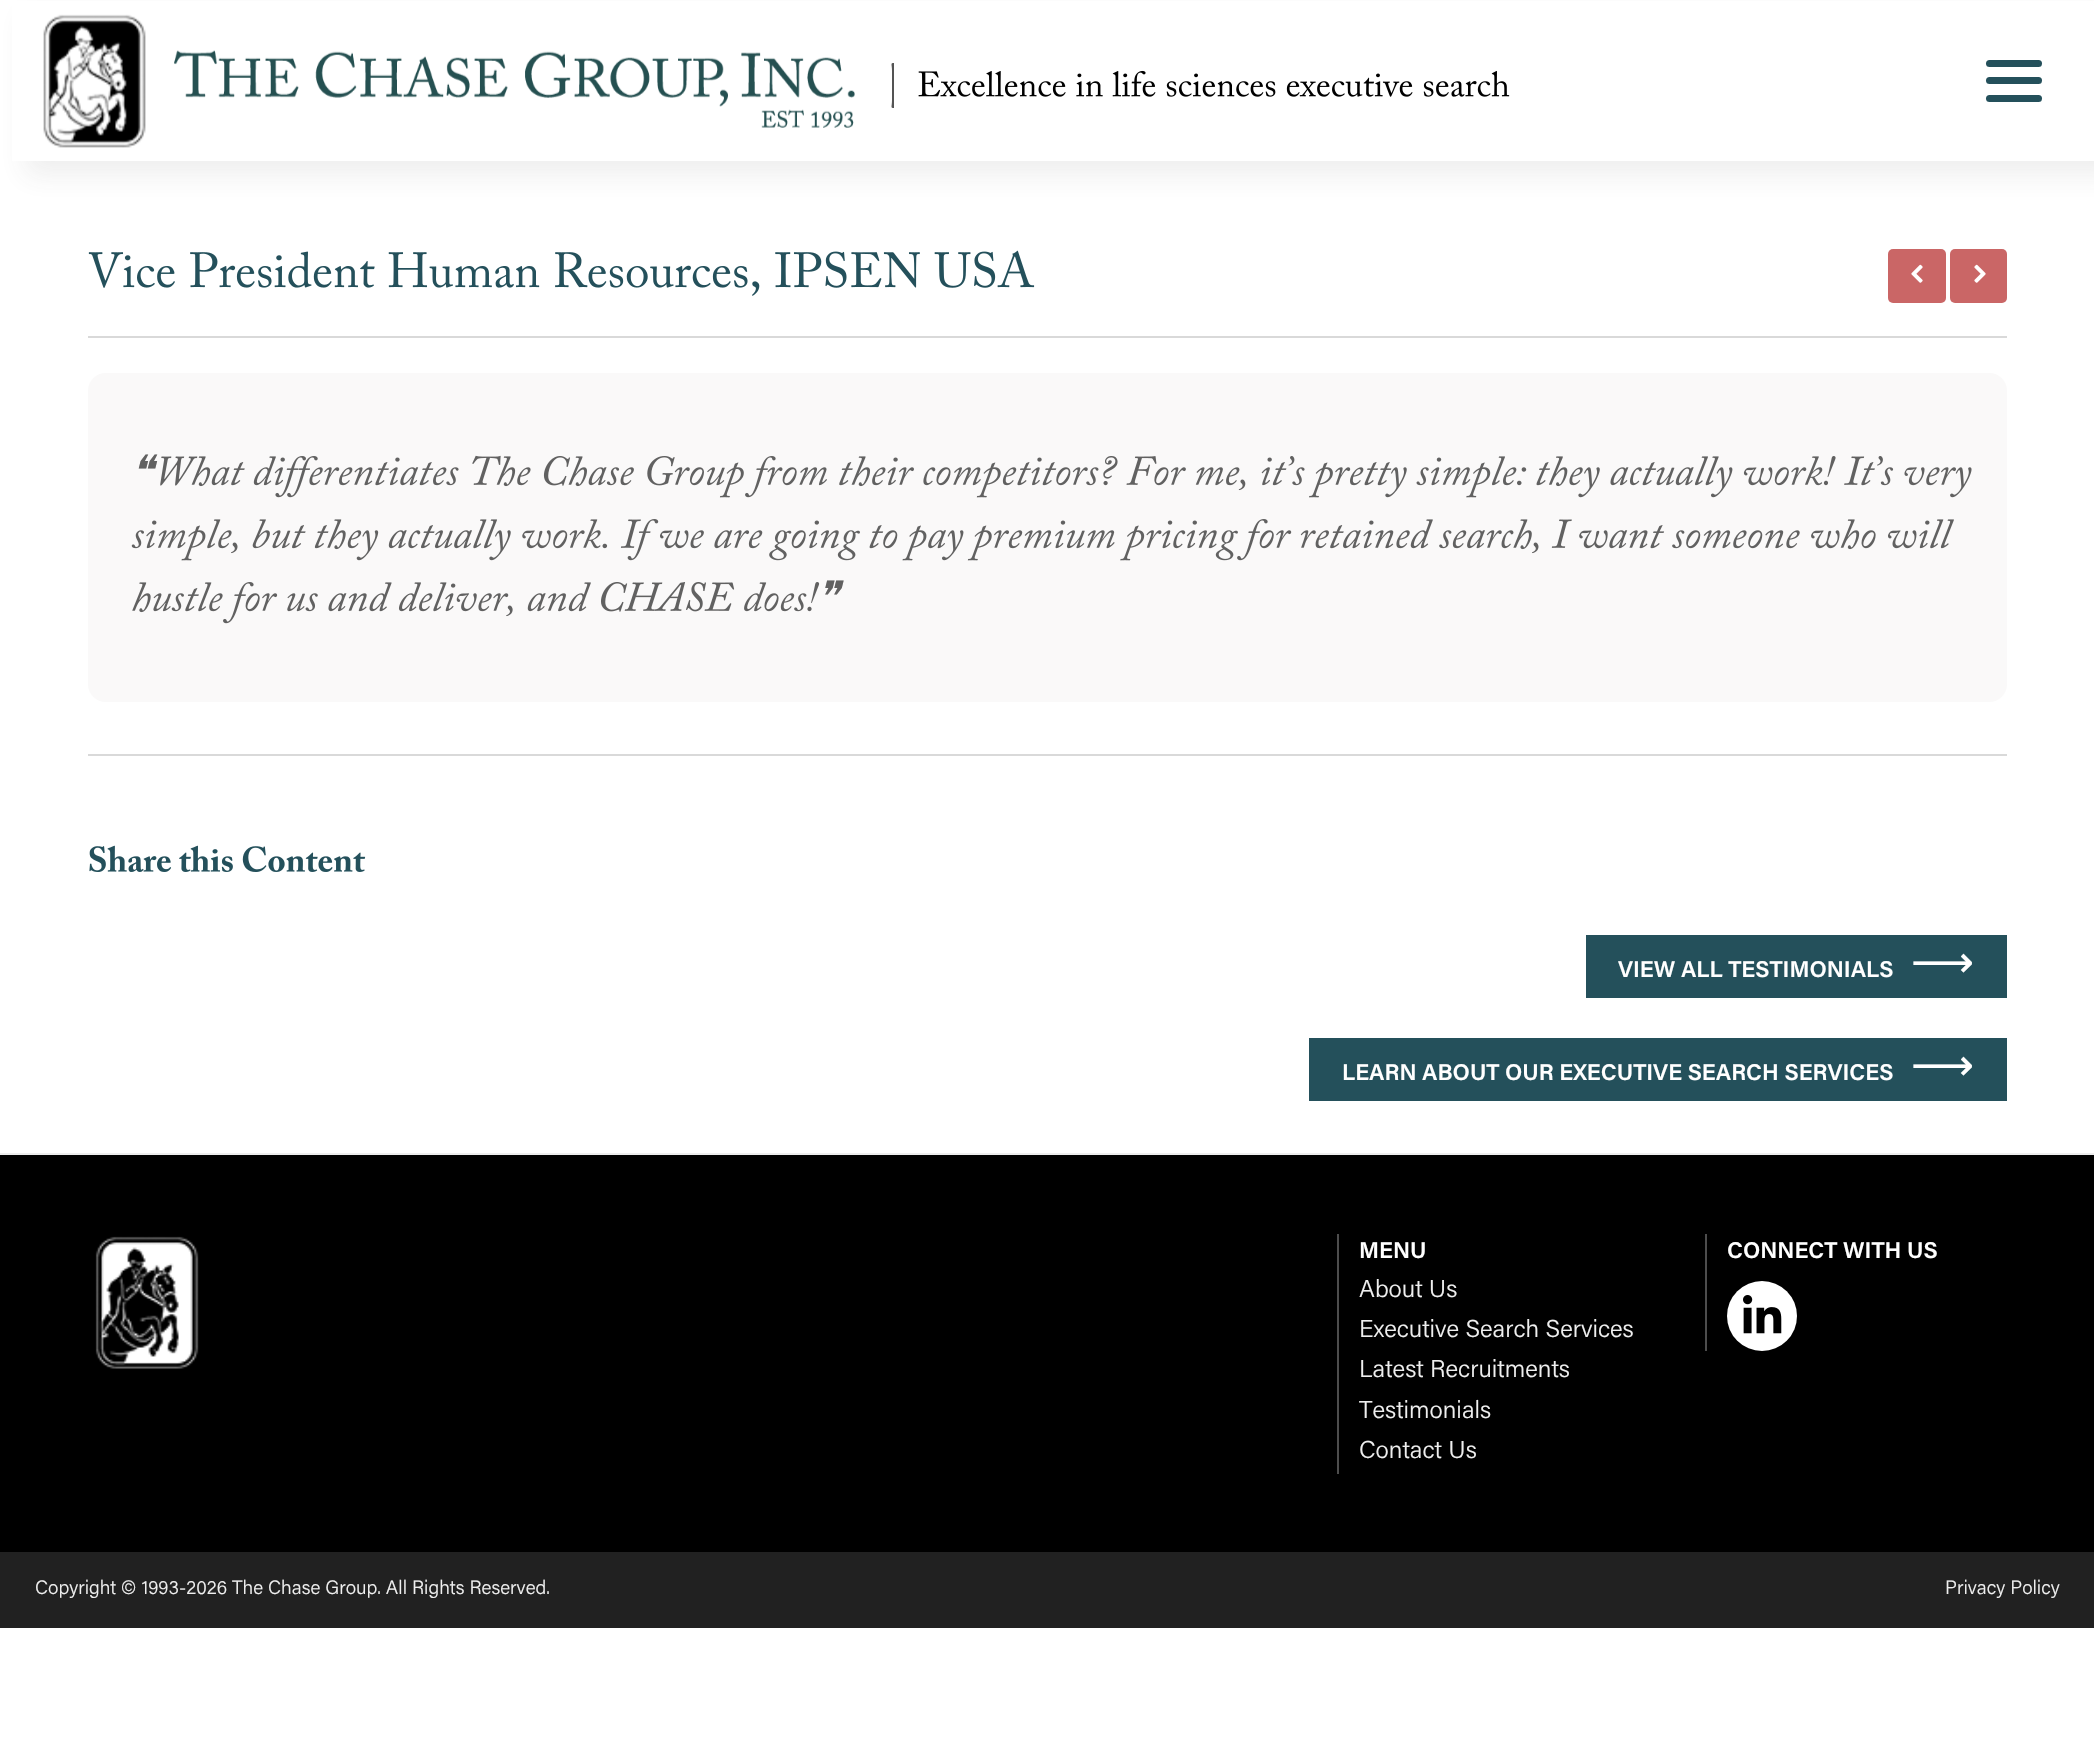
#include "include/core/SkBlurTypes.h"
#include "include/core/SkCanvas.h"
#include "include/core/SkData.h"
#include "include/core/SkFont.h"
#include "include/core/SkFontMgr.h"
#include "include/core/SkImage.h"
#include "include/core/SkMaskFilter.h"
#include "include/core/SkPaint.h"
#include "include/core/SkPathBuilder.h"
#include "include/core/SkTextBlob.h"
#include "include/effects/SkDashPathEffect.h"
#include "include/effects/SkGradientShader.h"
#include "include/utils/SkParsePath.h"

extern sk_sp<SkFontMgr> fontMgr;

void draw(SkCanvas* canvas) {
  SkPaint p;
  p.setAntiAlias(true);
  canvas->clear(SK_ColorWHITE);
  p.setColor(SkColorSetARGB(23, 71, 71, 71));
  p.setMaskFilter(SkMaskFilter::MakeBlur(kNormal_SkBlurStyle, 13));
  canvas->drawRect(SkRect::MakeLTRB(25, 14, 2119, 175), p);
  p.setMaskFilter(nullptr);
  p.setColor(SK_ColorWHITE);
  canvas->drawRect(SkRect::MakeLTRB(12, 1, 2094, 161), p);
  canvas->drawImageRect(SkImages::DeferredFromEncodedData(SkData::MakeFromFileName("images/1.png")), SkRect::MakeLTRB(43, 14, 146, 148), SkSamplingOptions());
  canvas->drawImageRect(SkImages::DeferredFromEncodedData(SkData::MakeFromFileName("images/2.png")), SkRect::MakeLTRB(174, 50, 855, 128), SkSamplingOptions());
  p.setColor(SkColorSetRGB(84, 84, 84));
  canvas->drawPath(SkPathBuilder().moveTo(894, 108).cubicTo(890, 108, 892, 107, 892, 100).lineTo(892, 71).cubicTo(892, 64, 890, 63, 894, 63).close().detach(), p);
  canvas->drawImageRect(SkImages::DeferredFromEncodedData(SkData::MakeFromFileName("images/3.png")), SkRect::MakeLTRB(918, 70, 1510, 97), SkSamplingOptions());
  p.setColor(SkColorSetRGB(36, 80, 91));
  canvas->drawRoundRect(SkRect::MakeLTRB(1986, 60, 2042, 67), 3.5f, 3.5f, p);
  canvas->drawRoundRect(SkRect::MakeLTRB(1986, 77, 2042, 84), 3.5f, 3.5f, p);
  canvas->drawRoundRect(SkRect::MakeLTRB(1986, 95, 2042, 102), 3.5f, 3.5f, p);
  p.setColor(SkColorSetRGB(237, 237, 237));
  canvas->drawRect(SkRect::MakeLTRB(0, 1153, 2094, 1155), p);
  p.setColor(SkColorSetRGB(217, 217, 217));
  canvas->drawRect(SkRect::MakeLTRB(88, 336, 2007, 338), p);
  canvas->drawImageRect(SkImages::DeferredFromEncodedData(SkData::MakeFromFileName("images/4.png")), SkRect::MakeLTRB(88, 250, 1035, 296), SkSamplingOptions());
  p.setColor(SkColorSetRGB(202, 102, 102));
  canvas->drawRoundRect(SkRect::MakeLTRB(1888, 249, 1946, 303), 5, 5, p);
  canvas->drawImageRect(SkImages::DeferredFromEncodedData(SkData::MakeFromFileName("images/5.png")), SkRect::MakeLTRB(1911, 264, 1923, 283), SkSamplingOptions());
  canvas->drawRoundRect(SkRect::MakeLTRB(1950, 249, 2007, 303), 5, 5, p);
  canvas->drawImageRect(SkImages::DeferredFromEncodedData(SkData::MakeFromFileName("images/6.png")), SkRect::MakeLTRB(1974, 264, 1986, 283), SkSamplingOptions());
  p.setColor(SkColorSetRGB(217, 217, 217));
  canvas->drawRect(SkRect::MakeLTRB(88, 754, 2007, 756), p);
  p.setColor(SkColorSetRGB(250, 249, 249));
  canvas->drawRoundRect(SkRect::MakeLTRB(88, 373, 2007, 702), 18, 18, p);
  canvas->drawImageRect(SkImages::DeferredFromEncodedData(SkData::MakeFromFileName("images/7.png")), SkRect::MakeLTRB(160, 455, 1118, 498), SkSamplingOptions());
  canvas->drawImageRect(SkImages::DeferredFromEncodedData(SkData::MakeFromFileName("images/8.png")), SkRect::MakeLTRB(1126, 456, 1527, 498), SkSamplingOptions());
  canvas->drawImageRect(SkImages::DeferredFromEncodedData(SkData::MakeFromFileName("images/9.png")), SkRect::MakeLTRB(1536, 456, 1836, 498), SkSamplingOptions());
  canvas->drawImageRect(SkImages::DeferredFromEncodedData(SkData::MakeFromFileName("images/10.png")), SkRect::MakeLTRB(1844, 456, 1972, 498), SkSamplingOptions());
  canvas->drawImageRect(SkImages::DeferredFromEncodedData(SkData::MakeFromFileName("images/11.png")), SkRect::MakeLTRB(131, 519, 608, 561), SkSamplingOptions());
  canvas->drawImageRect(SkImages::DeferredFromEncodedData(SkData::MakeFromFileName("images/12.png")), SkRect::MakeLTRB(620, 519, 1954, 561), SkSamplingOptions());
  canvas->drawImageRect(SkImages::DeferredFromEncodedData(SkData::MakeFromFileName("images/13.png")), SkRect::MakeLTRB(132, 582, 820, 624), SkSamplingOptions());
  canvas->drawImageRect(SkImages::DeferredFromEncodedData(SkData::MakeFromFileName("images/14.png")), SkRect::MakeLTRB(89, 845, 366, 872), SkSamplingOptions());
  p.setColor(SkColorSetRGB(36, 80, 91));
  canvas->drawRect(SkRect::MakeLTRB(1586, 935, 2007, 998), p);
  canvas->drawRect(SkRect::MakeLTRB(1309, 1038, 2007, 1101), p);
  p.setColor(SK_ColorBLACK);
  canvas->drawRect(SkRect::MakeLTRB(0, 1155, 2094, 1552), p);
  canvas->drawImageRect(SkImages::DeferredFromEncodedData(SkData::MakeFromFileName("images/15.png")), SkRect::MakeLTRB(95, 1236, 199, 1369), SkSamplingOptions());
  p.setColor(SkColorSetRGB(77, 77, 77));
  canvas->drawRect(SkRect::MakeLTRB(1337, 1234, 1339, 1474), p);
  canvas->drawRect(SkRect::MakeLTRB(1705, 1234, 1707, 1351), p);
  p.setColor(SK_ColorWHITE);
  canvas->drawCircle(1762, 1316, 35, p);
  canvas->drawImageRect(SkImages::DeferredFromEncodedData(SkData::MakeFromFileName("images/16.png")), SkRect::MakeLTRB(1743, 1295, 1782, 1334), SkSamplingOptions());
  p.setColor(SkColorSetRGB(33, 33, 33));
  canvas->drawRect(SkRect::MakeLTRB(0, 1552, 2094, 1628), p);
  SkFont font1(fontMgr->matchFamilyStyle("DejaVu Sans", SkFontStyle::Italic()), 42);
  font1.setSubpixel(true);
  p.setColor(SkColorSetRGB(97, 97, 97));
  canvas->drawString("❝", 131, 485, font1, p);
  canvas->drawString("❞", 817, 611, font1, p);
  SkFont font2(fontMgr->matchFamilyStyle("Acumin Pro", SkFontStyle(600, SkFontStyle::kNormal_Width, SkFontStyle::kUpright_Slant)), 22.75f);
  font2.setSubpixel(true);
  p.setColor(SK_ColorWHITE);
  canvas->drawString("VIEW ALL TESTIMONIALS", 1618, 977, font2, p);
  SkFont font3(fontMgr->matchFamilyStyle("DejaVu Sans", SkFontStyle::Normal()), 44);
  font3.setSubpixel(true);
  canvas->drawString("⟶", 1911, 977, font3, p);
  canvas->drawString("LEARN ABOUT OUR EXECUTIVE SEARCH SERVICES", 1342, 1080, font2, p);
  canvas->drawString("⟶", 1911, 1080, font3, p);
  canvas->drawString("MENU", 1359, 1258, font2, p);
  SkFont font4(fontMgr->matchFamilyStyle("Acumin Pro", SkFontStyle(300, SkFontStyle::kNormal_Width, SkFontStyle::kUpright_Slant)), 24.5f);
  font4.setSubpixel(true);
  p.setColor(SkColorSetRGB(239, 239, 239));
  canvas->drawString("About Us", 1359, 1297, font4, p);
  canvas->drawString("Executive Search Services", 1359, 1337, font4, p);
  canvas->drawString("Latest Recruitments", 1359, 1377, font4, p);
  canvas->drawString("Testimonials", 1359, 1418, font4, p);
  canvas->drawString("Contact Us", 1359, 1458, font4, p);
  p.setColor(SK_ColorWHITE);
  canvas->drawString("CONNECT WITH US", 1727, 1258, font2, p);
  SkFont font5(fontMgr->matchFamilyStyle("Acumin Pro", SkFontStyle(300, SkFontStyle::kNormal_Width, SkFontStyle::kUpright_Slant)), 19.25f);
  font5.setSubpixel(true);
  p.setColor(SkColorSetRGB(239, 239, 239));
  canvas->drawString("Copyright © 1993-2026 The Chase Group. All Rights Reserved.", 35, 1594, font5, p);
  canvas->drawString("Privacy Policy", 1945, 1594, font5, p);
}
